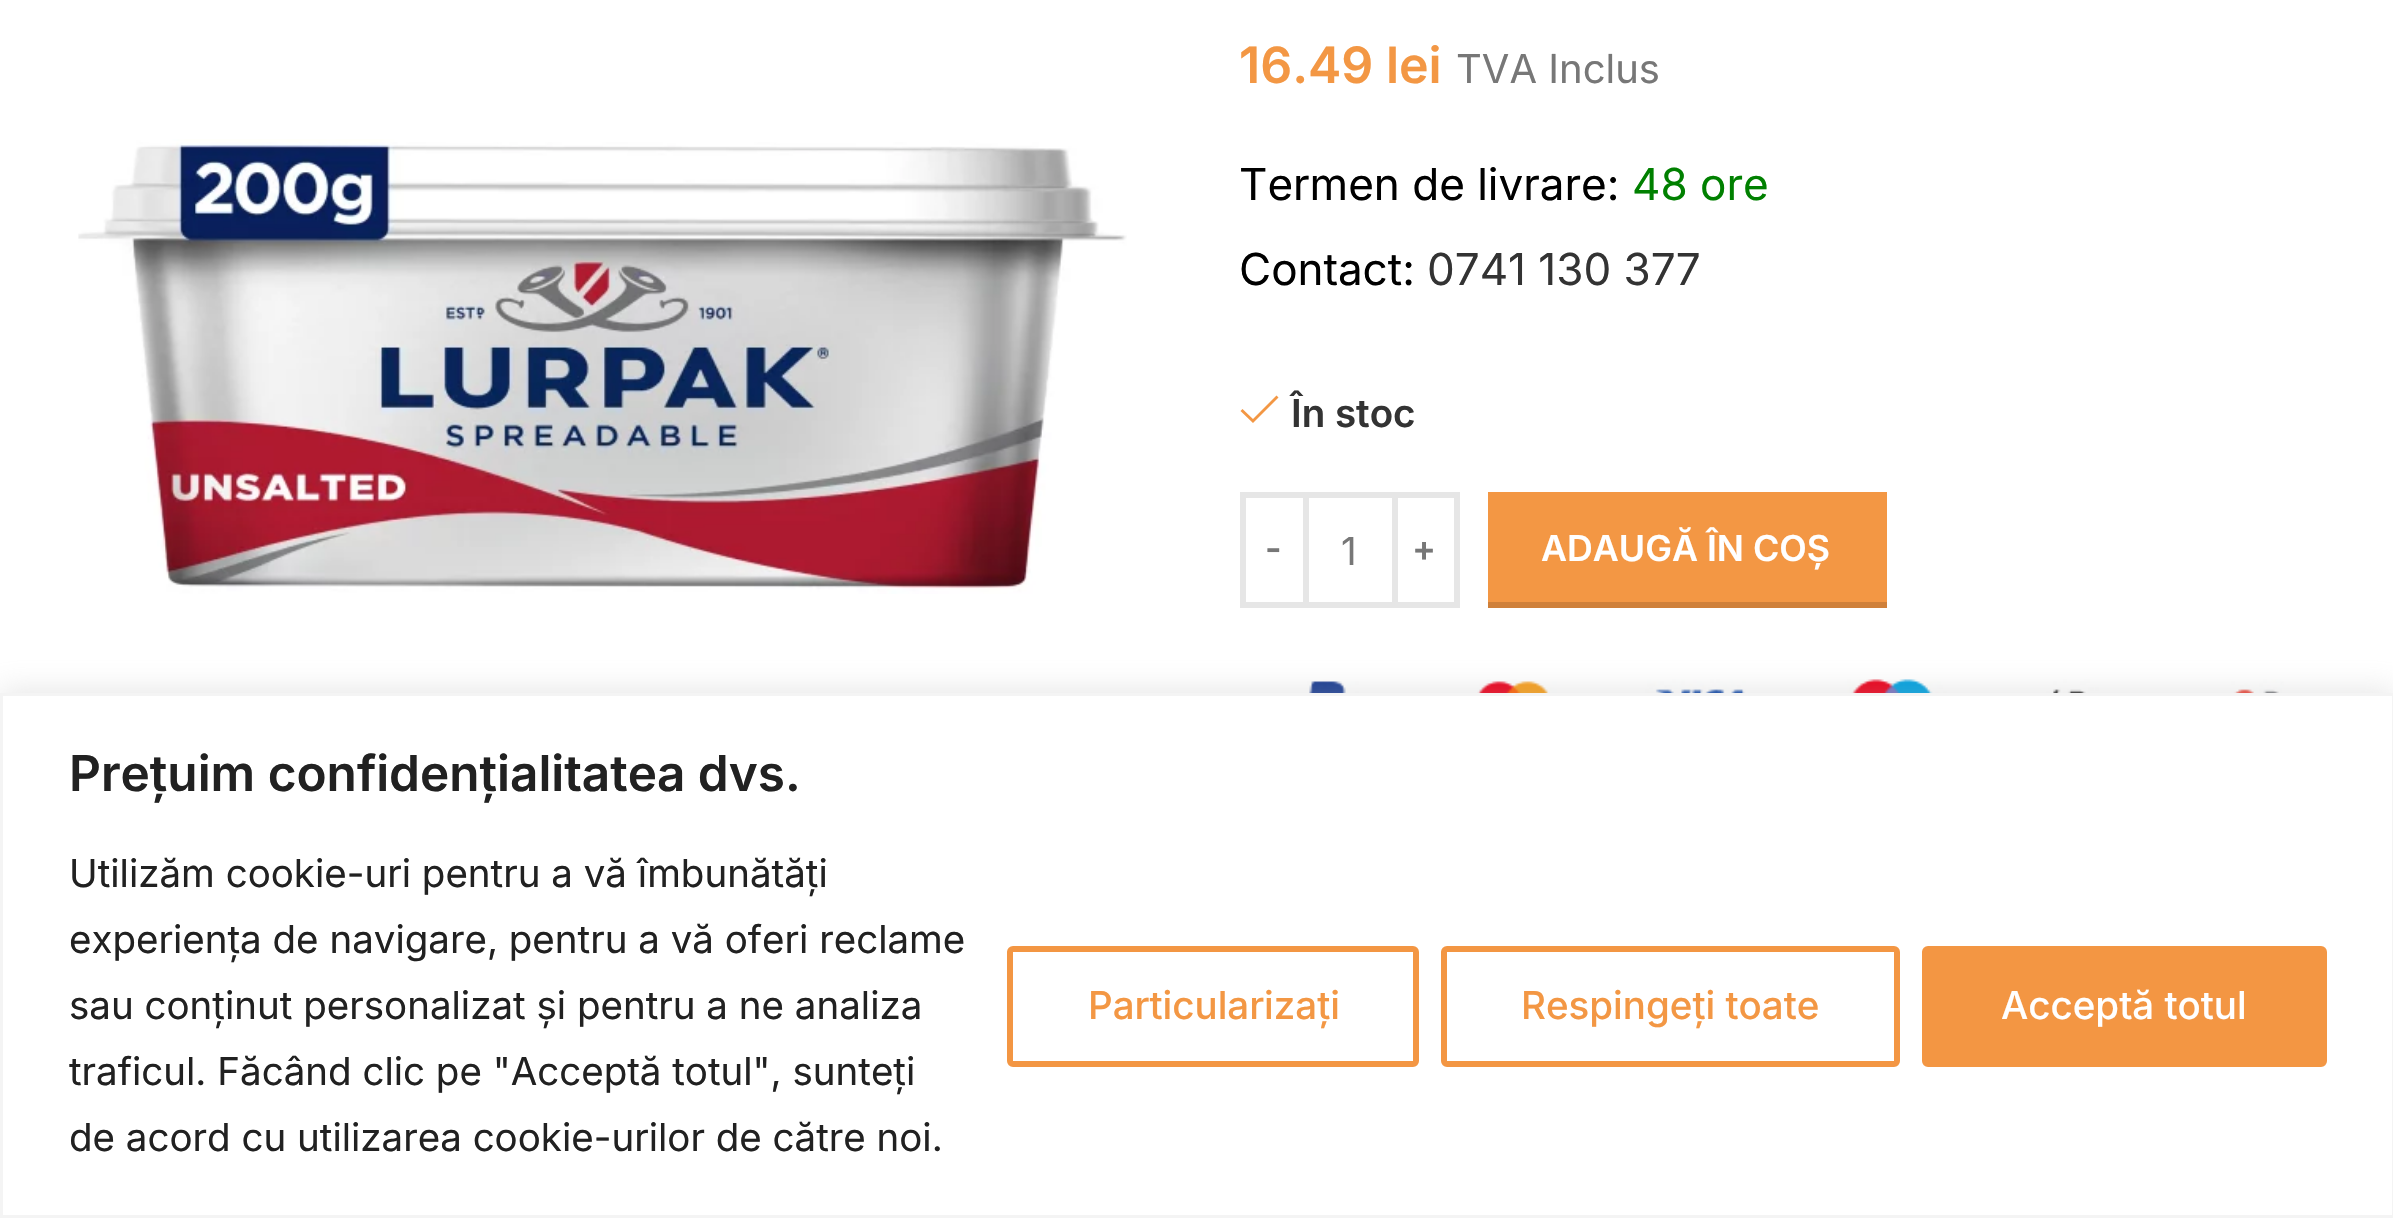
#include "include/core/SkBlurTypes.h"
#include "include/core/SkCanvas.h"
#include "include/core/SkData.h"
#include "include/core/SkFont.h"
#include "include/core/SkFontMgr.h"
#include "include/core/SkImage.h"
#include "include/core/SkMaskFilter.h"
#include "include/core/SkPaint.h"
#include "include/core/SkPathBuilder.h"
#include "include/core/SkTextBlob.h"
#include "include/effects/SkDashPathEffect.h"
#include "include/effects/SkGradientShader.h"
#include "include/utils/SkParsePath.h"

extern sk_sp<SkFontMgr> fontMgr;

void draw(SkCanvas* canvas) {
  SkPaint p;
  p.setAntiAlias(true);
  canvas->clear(SK_ColorWHITE);
  canvas->drawImageRect(SkImages::DeferredFromEncodedData(SkData::MakeFromFileName("images/1.png")), SkRect::MakeLTRB(78, 139, 1127, 594), SkSamplingOptions());
  p.setColor(SkColorSetRGB(243, 151, 68));
  canvas->drawPath(SkPathBuilder().moveTo(1278.5f, 397.5f).lineTo(1276.5f, 395.5f).lineTo(1253, 419).lineTo(1242.5f, 409).lineTo(1240.5f, 411).lineTo(1253, 423).close().detach(), p);
  p.setStyle(SkPaint::kStroke_Style);
  p.setStrokeWidth(6);
  p.setColor(SkColorSetRGB(230, 230, 230));
  canvas->drawRect(SkRect::MakeLTRB(1243, 495, 1306, 605), p);
  p.setStyle(SkPaint::kFill_Style);
  canvas->drawRect(SkRect::MakeLTRB(1309, 492, 1392, 498), p);
  canvas->drawRect(SkRect::MakeLTRB(1309, 602, 1392, 608), p);
  p.setStyle(SkPaint::kStroke_Style);
  canvas->drawRect(SkRect::MakeLTRB(1395, 495, 1457, 605), p);
  p.setStyle(SkPaint::kFill_Style);
  p.setColor(SkColorSetRGB(243, 151, 68));
  canvas->drawRect(SkRect::MakeLTRB(1488, 492, 1887, 602), p);
  p.setColor(SkColorSetRGB(207, 128, 58));
  canvas->drawRect(SkRect::MakeLTRB(1488, 602, 1887, 608), p);
  canvas->drawImageRect(SkImages::DeferredFromEncodedData(SkData::MakeFromFileName("images/2.png")), SkRect::MakeLTRB(1304, 679, 2309, 693), SkSamplingOptions());
  p.setColor(SkColorSetARGB(77, 172, 171, 171));
  p.setMaskFilter(SkMaskFilter::MakeBlur(kNormal_SkBlurStyle, 14));
  canvas->drawRect(SkRect::MakeLTRB(0, 690, 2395, 1216), p);
  p.setMaskFilter(nullptr);
  p.setColor(SK_ColorWHITE);
  canvas->drawRect(SkRect::MakeLTRB(1.5f, 694.5f, 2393.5f, 1216.5f), p);
  p.setStyle(SkPaint::kStroke_Style);
  p.setStrokeWidth(3);
  p.setColor(SkColorSetRGB(244, 244, 244));
  canvas->drawRect(SkRect::MakeLTRB(1.5f, 694.5f, 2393.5f, 1216.5f), p);
  p.setStrokeWidth(6);
  p.setColor(SkColorSetRGB(243, 150, 67));
  canvas->drawRoundRect(SkRect::MakeLTRB(1010, 949, 1416, 1064), 3, 3, p);
  canvas->drawRoundRect(SkRect::MakeLTRB(1444, 949, 1897, 1064), 3, 3, p);
  p.setStyle(SkPaint::kFill_Style);
  canvas->drawRoundRect(SkRect::MakeLTRB(1925, 949, 2324, 1064), 3, 3, p);
  p.setStyle(SkPaint::kStroke_Style);
  canvas->drawRoundRect(SkRect::MakeLTRB(1925, 949, 2324, 1064), 3, 3, p);
  SkFont font1(fontMgr->matchFamilyStyle("Inter", SkFontStyle(600, SkFontStyle::kNormal_Width, SkFontStyle::kUpright_Slant)), 50);
  font1.setSubpixel(true);
  p.setStyle(SkPaint::kFill_Style);
  p.setColor(SkColorSetRGB(243, 151, 68));
  canvas->drawString("16.49 lei", 1239, 83, font1, p);
  SkFont font2(fontMgr->matchFamilyStyle("Inter", SkFontStyle::Normal()), 40);
  font2.setSubpixel(true);
  p.setColor(SkColorSetRGB(119, 119, 119));
  canvas->drawString("TVA Inclus", 1456, 83, font2, p);
  SkFont font3(fontMgr->matchFamilyStyle("Inter", SkFontStyle::Normal()), 44);
  font3.setSubpixel(true);
  p.setColor(SK_ColorBLACK);
  canvas->drawString("Termen de livrare:", 1239, 200, font3, p);
  p.setColor(SkColorSetRGB(0, 128, 0));
  canvas->drawString("48 ore", 1632, 200, font3, p);
  p.setColor(SK_ColorBLACK);
  canvas->drawString("Contact:", 1239, 285, font3, p);
  p.setColor(SkColorSetRGB(51, 51, 51));
  canvas->drawString("0741 130 377", 1427, 285, font3, p);
  SkFont font4(fontMgr->matchFamilyStyle("Inter", SkFontStyle(600, SkFontStyle::kNormal_Width, SkFontStyle::kUpright_Slant)), 38.5f);
  font4.setSubpixel(true);
  canvas->drawString("În stoc", 1291, 427, font4, p);
  SkFont font5(fontMgr->matchFamilyStyle("Inter", SkFontStyle(600, SkFontStyle::kNormal_Width, SkFontStyle::kUpright_Slant)), 35.75f);
  font5.setSubpixel(true);
  p.setColor(SkColorSetRGB(119, 119, 119));
  canvas->drawString("-", 1265, 561, font5, p);
  SkFont font6(fontMgr->matchFamilyStyle("Inter", SkFontStyle::Normal()), 38.5f);
  font6.setSubpixel(true);
  canvas->drawString("1", 1341, 565, font6, p);
  canvas->drawString("+", 1412, 561, font5, p);
  p.setColor(SK_ColorWHITE);
  canvas->drawString("ADAUGĂ ÎN COȘ", 1541, 561, font5, p);
  SkFont font7(fontMgr->matchFamilyStyle("Inter", SkFontStyle(600, SkFontStyle::kNormal_Width, SkFontStyle::kUpright_Slant)), 49.5f);
  font7.setSubpixel(true);
  p.setColor(SkColorSetRGB(33, 33, 33));
  canvas->drawString("Prețuim confidențialitatea dvs.", 69, 791, font7, p);
  canvas->drawString("Utilizăm cookie-uri pentru a vă îmbunătăți", 69, 887, font6, p);
  canvas->drawString("experiența de navigare, pentru a vă oferi reclame", 69, 953, font6, p);
  canvas->drawString("sau conținut personalizat și pentru a ne analiza", 69, 1019, font6, p);
  canvas->drawString("traficul. Făcând clic pe \"Acceptă totul\", sunteți", 69, 1085, font6, p);
  canvas->drawString("de acord cu utilizarea cookie-urilor de către noi.", 69, 1151, font6, p);
  SkFont font8(fontMgr->matchFamilyStyle("Inter", SkFontStyle(500, SkFontStyle::kNormal_Width, SkFontStyle::kUpright_Slant)), 38.5f);
  font8.setSubpixel(true);
  p.setColor(SkColorSetRGB(243, 151, 68));
  canvas->drawString("Particularizați", 1088, 1019, font8, p);
  canvas->drawString("Respingeți toate", 1521, 1019, font8, p);
  p.setColor(SK_ColorWHITE);
  canvas->drawString("Acceptă totul", 2001, 1019, font8, p);
}
